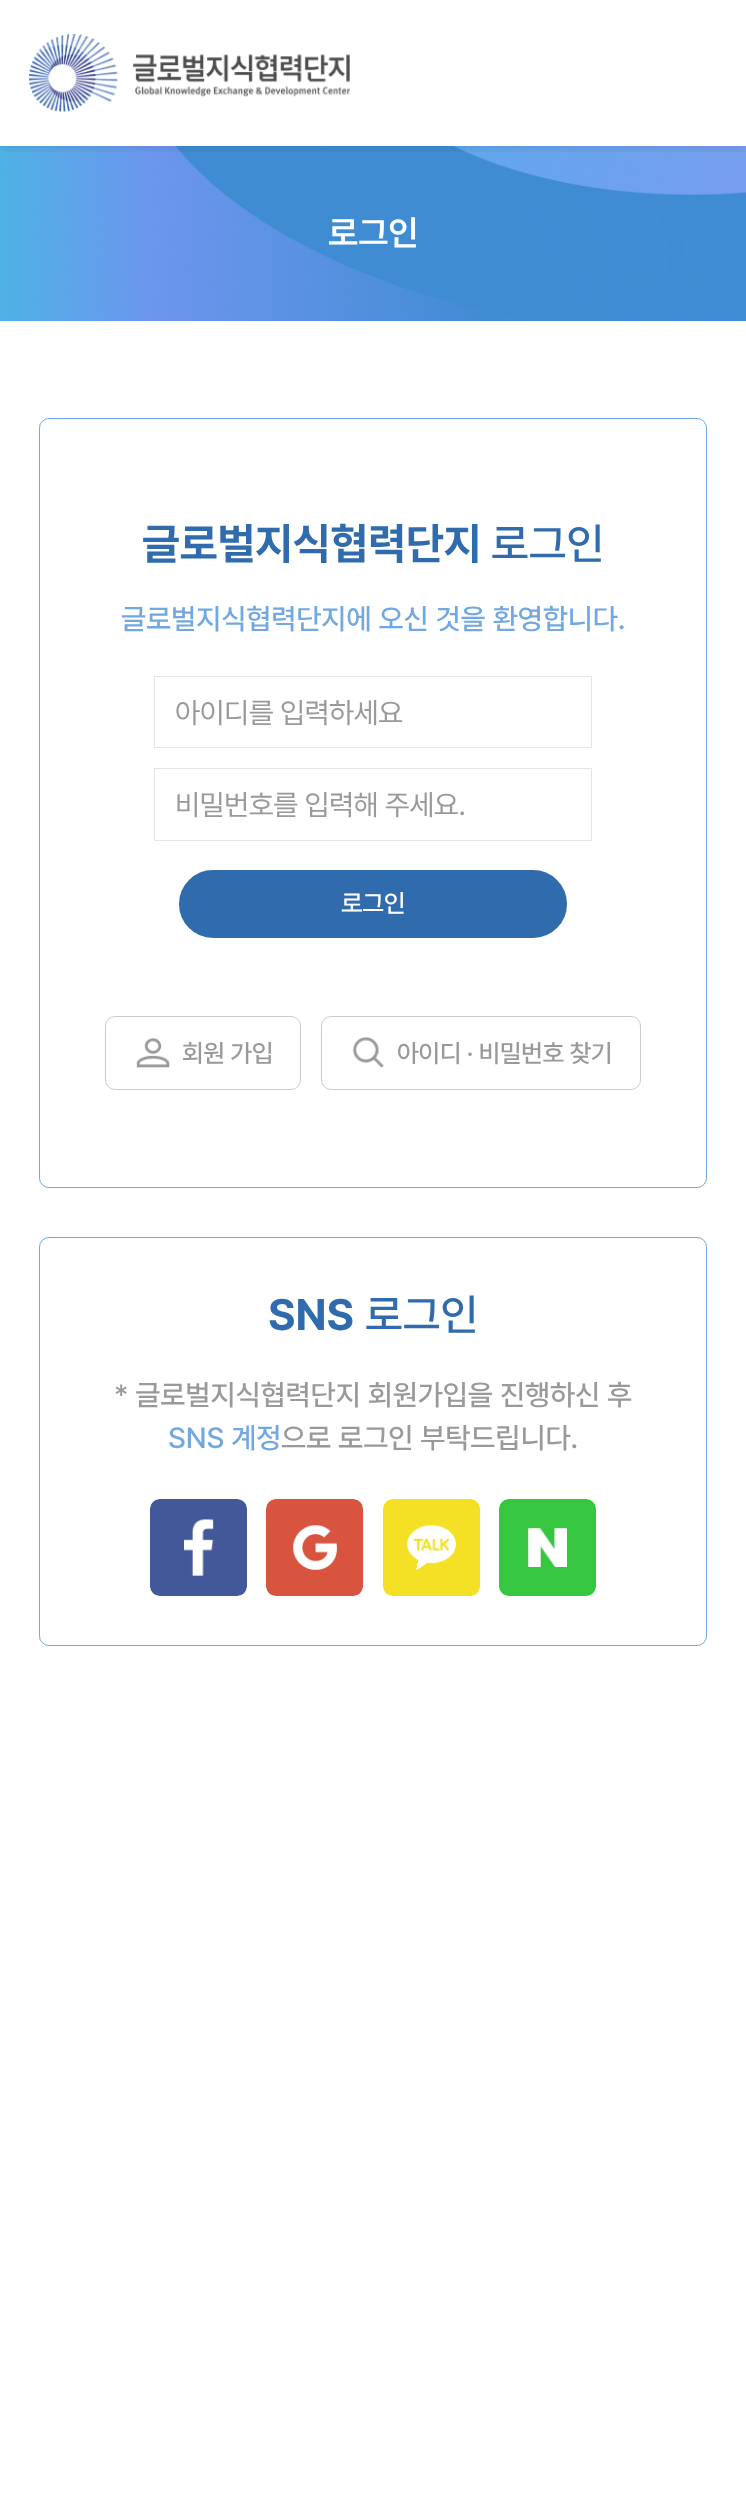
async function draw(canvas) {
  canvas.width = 746
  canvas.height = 2495
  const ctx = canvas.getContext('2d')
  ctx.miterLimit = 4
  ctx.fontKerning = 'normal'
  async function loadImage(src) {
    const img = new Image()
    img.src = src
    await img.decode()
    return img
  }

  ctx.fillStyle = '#fff'
  ctx.fillRect(0, 0, 746, 2495)
  ctx.drawImage(await loadImage('image1.png'), 0, 146, 746, 175)
  ctx.save()
  ctx.beginPath()
  ctx.rect(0, 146, 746, 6)
  ctx.clip()
  ctx.fillStyle = '#0000001a'
  ctx.filter = 'blur(5px)'
  ctx.beginPath()
  ctx.rect(0, 2, 746, 146)
  ctx.fill()
  ctx.filter = 'none'
  ctx.restore()
  ctx.drawImage(await loadImage('image0.png'), 29, 34, 321, 78)
  ctx.letterSpacing = '-0.1px'
  ctx.font = '600 35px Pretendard'
  ctx.fillText('로그인', 328, 245)
  ctx.beginPath()
  ctx.roundRect(39.5, 418.5, 667, 769, 9.5)
  ctx.strokeStyle = '#71a8e1'
  ctx.stroke()
  ctx.font = 'bold 43.75px Pretendard'
  ctx.fillStyle = '#306cad'
  ctx.fillText('글로벌지식협력단지', 142, 559)
  ctx.font = '500 43.75px Pretendard'
  ctx.fillText('로그인', 491, 559)
  ctx.font = '500 29.1px Pretendard'
  ctx.fillStyle = '#71a8e1'
  ctx.fillText('글로벌지식협력단지에 오신 것을 환영합니다.', 121, 629)
  ctx.strokeStyle = '#e4e4e4'
  ctx.strokeRect(154.5, 676.5, 437, 71)
  ctx.letterSpacing = '-0.6px'
  ctx.font = '29.1px Pretendard'
  ctx.fillStyle = '#999'
  ctx.fillText('아이디를 입력하세요', 175, 723)
  ctx.strokeRect(154.5, 768.5, 437, 72)
  ctx.fillText('비밀번호를 입력해 주세요.', 175, 815)
  ctx.fillStyle = '#306cad'
  ctx.beginPath()
  ctx.roundRect(180, 871, 386, 66, 33)
  ctx.fill()
  ctx.strokeStyle = '#306cad'
  ctx.lineWidth = 2
  ctx.stroke()
  ctx.letterSpacing = '-0.5px'
  ctx.font = '500 25.25px Pretendard'
  ctx.fillStyle = '#fff'
  ctx.fillText('로그인', 341, 912)
  ctx.beginPath()
  ctx.roundRect(105.5, 1016.5, 195, 73, 9.5)
  ctx.strokeStyle = '#ccc'
  ctx.lineWidth = 1
  ctx.stroke()
  ctx.drawImage(await loadImage('image2.png'), 136, 1037, 34, 31)
  ctx.fillStyle = '#999'
  ctx.fillText('회원 가입', 182, 1062)
  ctx.beginPath()
  ctx.roundRect(321.5, 1016.5, 319, 73, 9.5)
  ctx.stroke()
  ctx.drawImage(await loadImage('image3.png'), 352, 1037, 32, 31)
  ctx.fillText('아이디 · 비밀번호 찾기', 397, 1062)
  ctx.beginPath()
  ctx.roundRect(39.5, 1237.5, 667, 408, 9.5)
  ctx.strokeStyle = '#71a8e1'
  ctx.stroke()
  ctx.letterSpacing = '-0.1px'
  ctx.font = 'bold 43.75px Pretendard'
  ctx.fillStyle = '#306cad'
  ctx.fillText('SNS', 268, 1330)
  ctx.font = '500 43.75px Pretendard'
  ctx.fillText('로그인', 365, 1330)
  ctx.font = '500 29.1px Pretendard'
  ctx.fillStyle = '#999'
  ctx.fillText('* 글로벌지식협력단지 회원가입을 진행하신 후', 114, 1405)
  ctx.fillStyle = '#71a8e1'
  ctx.fillText('SNS 계정', 168, 1448)
  ctx.fillStyle = '#999'
  ctx.fillText('으로 로그인 부탁드립니다.', 281, 1448)
  ctx.drawImage(await loadImage('image4.png'), 150, 1499, 97, 97)
  ctx.drawImage(await loadImage('image5.png'), 266, 1499, 97, 97)
  ctx.drawImage(await loadImage('image6.png'), 383, 1499, 97, 97)
  ctx.drawImage(await loadImage('image7.png'), 499, 1499, 97, 97)
}

draw(document.querySelector('canvas'))
